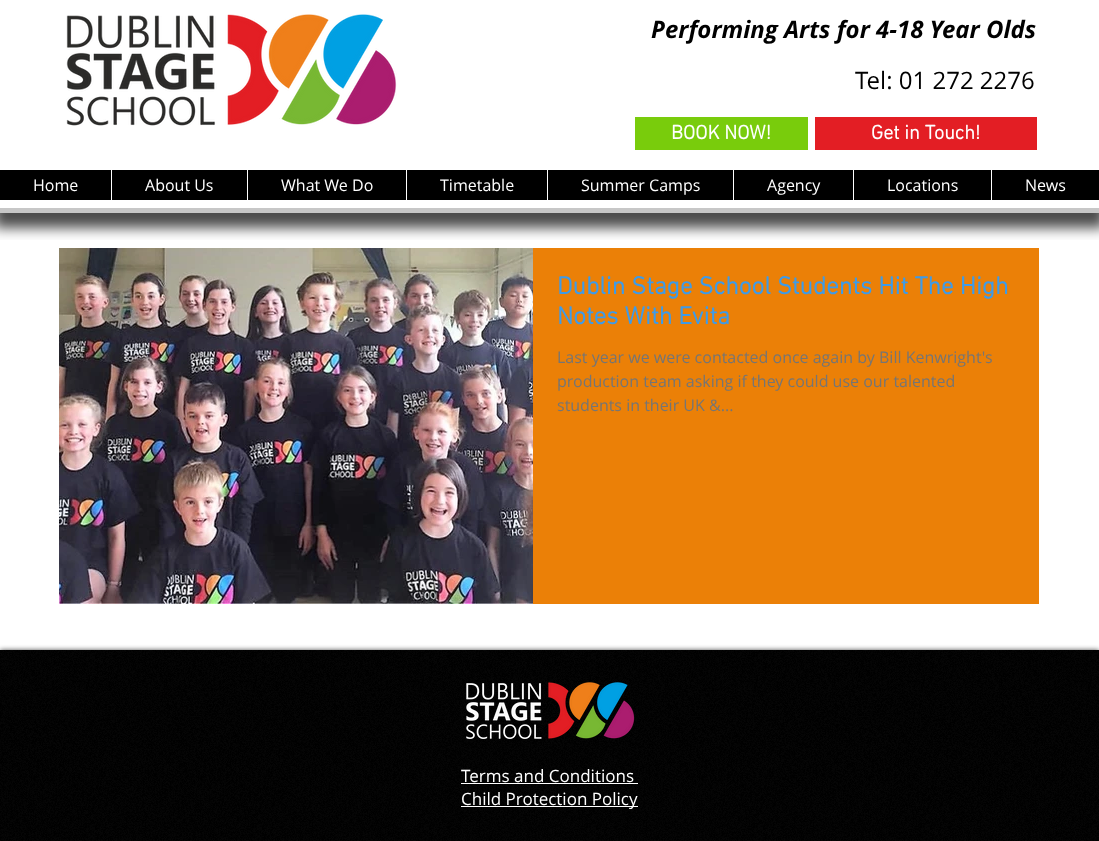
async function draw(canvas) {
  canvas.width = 1099
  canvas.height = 841
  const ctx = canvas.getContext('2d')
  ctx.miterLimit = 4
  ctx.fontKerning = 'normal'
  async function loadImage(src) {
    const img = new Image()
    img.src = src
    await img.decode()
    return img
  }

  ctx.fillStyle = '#fff'
  ctx.fillRect(0, 0, 1099, 841)
  ctx.drawImage(await loadImage('image1.png'), 59, 248, 474, 356)
  ctx.fillStyle = '#eb8007'
  ctx.fillRect(533, 248, 506, 356)
  ctx.save()
  ctx.beginPath()
  ctx.rect(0, 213, 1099, 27)
  ctx.clip()
  ctx.fillStyle = '#000000b3'
  ctx.filter = 'blur(6.5px)'
  ctx.beginPath()
  ctx.rect(-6, 3, 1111, 225)
  ctx.fill()
  ctx.filter = 'none'
  ctx.restore()
  ctx.fillStyle = '#c7c7c7'
  ctx.fillRect(0, 208, 1099, 5)
  ctx.drawImage(await loadImage('image0.png'), 66, 14, 331, 112)
  ctx.font = 'italic bold 24px Open Sans'
  ctx.fillStyle = '#000'
  ctx.fillText('Performing Arts for 4-18 Year Olds', 651, 38)
  ctx.font = '24px Open Sans'
  ctx.fillText('Tel: 01 272 2276', 855, 89)
  ctx.fillStyle = '#79cc0c'
  ctx.fillRect(635, 117, 173, 33)
  ctx.font = 'bold 20px "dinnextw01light"'
  ctx.fillStyle = '#fff'
  ctx.fillText('BOOK NOW!', 671, 139)
  ctx.fillStyle = '#e31e24'
  ctx.fillRect(815, 117, 222, 33)
  ctx.fillStyle = '#fff'
  ctx.fillText('Get in Touch!', 871, 139)
  ctx.fillStyle = '#000'
  ctx.fillRect(0, 170, 1099, 30)
  ctx.font = '16px Open Sans'
  ctx.fillStyle = '#fff'
  ctx.fillText('Home', 33, 191)
  ctx.fillRect(111, 170, 1, 30)
  ctx.fillText('About Us', 145, 191)
  ctx.fillRect(247, 170, 1, 30)
  ctx.fillText('What We Do', 281, 191)
  ctx.fillRect(406, 170, 1, 30)
  ctx.fillText('Timetable', 440, 191)
  ctx.fillRect(547, 170, 1, 30)
  ctx.fillText('Summer Camps', 581, 191)
  ctx.fillRect(733, 170, 1, 30)
  ctx.fillText('Agency', 767, 191)
  ctx.fillRect(853, 170, 1, 30)
  ctx.fillText('Locations', 887, 191)
  ctx.fillRect(991, 170, 1, 30)
  ctx.fillText('News', 1025, 191)
  ctx.font = 'bold 25px "dinnextw01light"'
  ctx.fillStyle = '#3d9be9'
  ctx.fillText('Dublin Stage School Students Hit The High', 557, 294)
  ctx.fillText('Notes With Evita', 557, 324)
  ctx.font = '16px Open Sans'
  ctx.fillStyle = '#757575'
  ctx.fillText('Last year we were contacted once again by Bill Kenwright\'s', 557, 363)
  ctx.fillText('production team asking if they could use our talented', 557, 387)
  ctx.fillText('students in their UK &...', 557, 411)
  ctx.fillStyle = '#000000b3'
  ctx.filter = 'blur(2.5px)'
  ctx.beginPath()
  ctx.rect(0, 650, 1099, 191)
  ctx.fill()
  ctx.filter = 'none'
  ctx.fillStyle = '#000'
  ctx.fillRect(0, 650, 1099, 191)
  ctx.drawImage(await loadImage('image2.png'), 0, 650, 1099, 191)
  ctx.drawImage(await loadImage('image3.png'), 466, 682, 169, 57)
  ctx.font = '17px Open Sans'
  ctx.fillStyle = '#fff'
  ctx.fillText('Terms and Conditions', 461, 782)
  ctx.fillRect(461, 783, 177, 1)
  ctx.fillRect(461, 806, 177, 1)
  ctx.fillText('Child Protection Policy', 461, 805)
}

draw(document.querySelector('canvas'))
